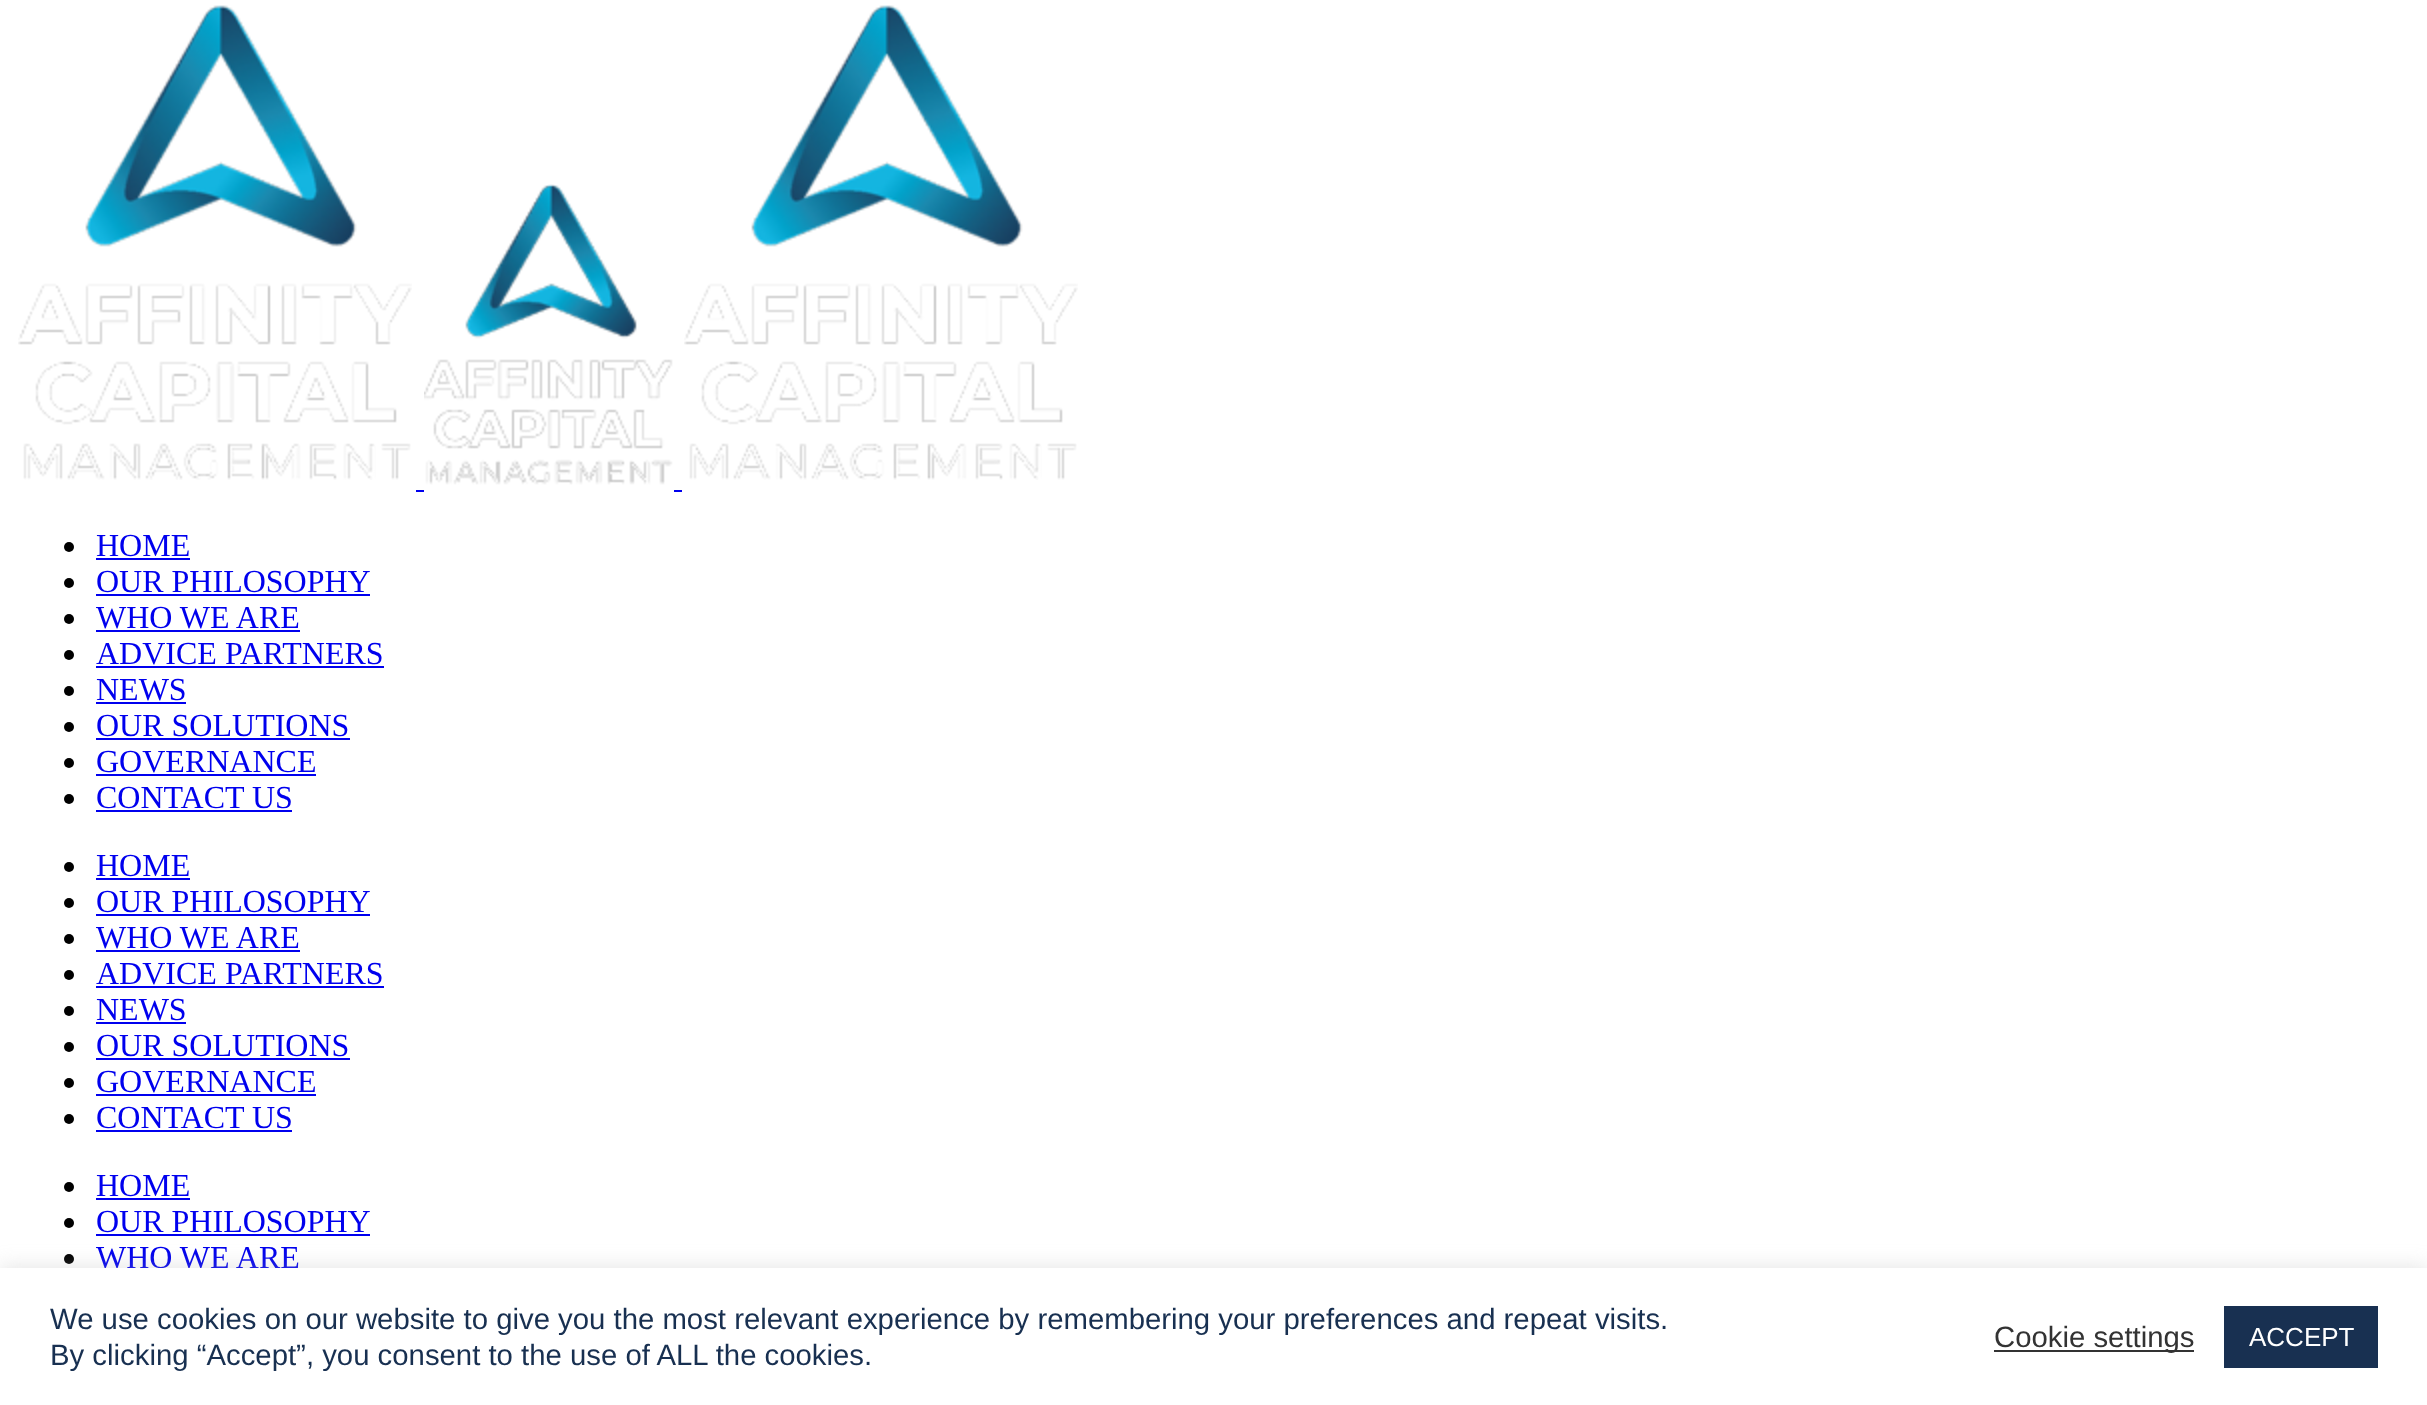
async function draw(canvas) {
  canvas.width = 2427
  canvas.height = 1405
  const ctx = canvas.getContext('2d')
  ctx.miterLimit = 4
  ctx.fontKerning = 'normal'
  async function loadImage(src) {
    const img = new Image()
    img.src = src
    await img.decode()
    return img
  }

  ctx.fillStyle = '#fff'
  ctx.fillRect(0, 0, 2427, 1405)
  ctx.drawImage(await loadImage('image0.png'), 18, 5, 394, 475)
  ctx.drawImage(await loadImage('image1.png'), 424, 184, 249, 301)
  ctx.drawImage(await loadImage('image0.png'), 684, 5, 394, 475)
  ctx.fillStyle = '#00e'
  ctx.fillRect(416, 490, 8, 2)
  ctx.fillRect(674, 490, 8, 2)
  ctx.fillStyle = '#000'
  ctx.beginPath()
  ctx.arc(69, 547, 5, 0, 2 * Math.PI)
  ctx.fill()
  ctx.font = '32px Liberation Serif'
  ctx.fillStyle = '#00e'
  ctx.fillText('HOME', 96, 556)
  ctx.fillRect(96, 558, 94, 2)
  ctx.fillStyle = '#000'
  ctx.beginPath()
  ctx.arc(69, 583, 5, 0, 2 * Math.PI)
  ctx.fill()
  ctx.fillStyle = '#00e'
  ctx.fillText('OUR PHILOSOPHY', 96, 592)
  ctx.fillRect(96, 594, 274, 2)
  ctx.fillStyle = '#000'
  ctx.beginPath()
  ctx.arc(69, 619, 5, 0, 2 * Math.PI)
  ctx.fill()
  ctx.fillStyle = '#00e'
  ctx.fillText('WHO WE ARE', 96, 628)
  ctx.fillRect(96, 630, 204, 2)
  ctx.fillStyle = '#000'
  ctx.beginPath()
  ctx.arc(69, 655, 5, 0, 2 * Math.PI)
  ctx.fill()
  ctx.fillStyle = '#00e'
  ctx.fillText('ADVICE PARTNERS', 96, 664)
  ctx.fillRect(96, 666, 288, 2)
  ctx.fillStyle = '#000'
  ctx.beginPath()
  ctx.arc(69, 691, 5, 0, 2 * Math.PI)
  ctx.fill()
  ctx.fillStyle = '#00e'
  ctx.fillText('NEWS', 96, 700)
  ctx.fillRect(96, 702, 90, 2)
  ctx.fillStyle = '#000'
  ctx.beginPath()
  ctx.arc(69, 727, 5, 0, 2 * Math.PI)
  ctx.fill()
  ctx.fillStyle = '#00e'
  ctx.fillText('OUR SOLUTIONS', 96, 736)
  ctx.fillRect(96, 738, 254, 2)
  ctx.fillStyle = '#000'
  ctx.beginPath()
  ctx.arc(69, 763, 5, 0, 2 * Math.PI)
  ctx.fill()
  ctx.fillStyle = '#00e'
  ctx.fillText('GOVERNANCE', 96, 772)
  ctx.fillRect(96, 774, 220, 2)
  ctx.fillStyle = '#000'
  ctx.beginPath()
  ctx.arc(69, 799, 5, 0, 2 * Math.PI)
  ctx.fill()
  ctx.fillStyle = '#00e'
  ctx.fillText('CONTACT US', 96, 808)
  ctx.fillRect(96, 810, 196, 2)
  ctx.fillStyle = '#000'
  ctx.beginPath()
  ctx.arc(69, 867, 5, 0, 2 * Math.PI)
  ctx.fill()
  ctx.fillStyle = '#00e'
  ctx.fillText('HOME', 96, 876)
  ctx.fillRect(96, 878, 94, 2)
  ctx.fillStyle = '#000'
  ctx.beginPath()
  ctx.arc(69, 903, 5, 0, 2 * Math.PI)
  ctx.fill()
  ctx.fillStyle = '#00e'
  ctx.fillText('OUR PHILOSOPHY', 96, 912)
  ctx.fillRect(96, 914, 274, 2)
  ctx.fillStyle = '#000'
  ctx.beginPath()
  ctx.arc(69, 939, 5, 0, 2 * Math.PI)
  ctx.fill()
  ctx.fillStyle = '#00e'
  ctx.fillText('WHO WE ARE', 96, 948)
  ctx.fillRect(96, 950, 204, 2)
  ctx.fillStyle = '#000'
  ctx.beginPath()
  ctx.arc(69, 975, 5, 0, 2 * Math.PI)
  ctx.fill()
  ctx.fillStyle = '#00e'
  ctx.fillText('ADVICE PARTNERS', 96, 984)
  ctx.fillRect(96, 986, 288, 2)
  ctx.fillStyle = '#000'
  ctx.beginPath()
  ctx.arc(69, 1011, 5, 0, 2 * Math.PI)
  ctx.fill()
  ctx.fillStyle = '#00e'
  ctx.fillText('NEWS', 96, 1020)
  ctx.fillRect(96, 1022, 90, 2)
  ctx.fillStyle = '#000'
  ctx.beginPath()
  ctx.arc(69, 1047, 5, 0, 2 * Math.PI)
  ctx.fill()
  ctx.fillStyle = '#00e'
  ctx.fillText('OUR SOLUTIONS', 96, 1056)
  ctx.fillRect(96, 1058, 254, 2)
  ctx.fillStyle = '#000'
  ctx.beginPath()
  ctx.arc(69, 1083, 5, 0, 2 * Math.PI)
  ctx.fill()
  ctx.fillStyle = '#00e'
  ctx.fillText('GOVERNANCE', 96, 1092)
  ctx.fillRect(96, 1094, 220, 2)
  ctx.fillStyle = '#000'
  ctx.beginPath()
  ctx.arc(69, 1119, 5, 0, 2 * Math.PI)
  ctx.fill()
  ctx.fillStyle = '#00e'
  ctx.fillText('CONTACT US', 96, 1128)
  ctx.fillRect(96, 1130, 196, 2)
  ctx.fillStyle = '#000'
  ctx.beginPath()
  ctx.arc(69, 1187, 5, 0, 2 * Math.PI)
  ctx.fill()
  ctx.fillStyle = '#00e'
  ctx.fillText('HOME', 96, 1196)
  ctx.fillRect(96, 1198, 94, 2)
  ctx.fillStyle = '#000'
  ctx.beginPath()
  ctx.arc(69, 1223, 5, 0, 2 * Math.PI)
  ctx.fill()
  ctx.fillStyle = '#00e'
  ctx.fillText('OUR PHILOSOPHY', 96, 1232)
  ctx.fillRect(96, 1234, 274, 2)
  ctx.fillStyle = '#000'
  ctx.beginPath()
  ctx.arc(69, 1259, 5, 0, 2 * Math.PI)
  ctx.fill()
  ctx.fillStyle = '#00e'
  ctx.fillText('WHO WE ARE', 96, 1268)
  ctx.fillStyle = '#acabab4d'
  ctx.filter = 'blur(10px)'
  ctx.beginPath()
  ctx.rect(0, 1266, 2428, 138)
  ctx.fill()
  ctx.filter = 'none'
  ctx.fillStyle = '#fff'
  ctx.fillRect(0, 1268, 2427, 137)
  ctx.font = '29.33px Liberation Sans'
  ctx.fillStyle = '#183051'
  ctx.fillText('We use cookies on our website to give you the most relevant experience by remembering your preferences and repeat visits.', 50, 1329)
  ctx.fillText('By clicking “Accept”, you consent to the use of ALL the cookies.', 50, 1365)
  ctx.fillStyle = '#333'
  ctx.fillRect(1994, 1350, 200, 2)
  ctx.fillText('Cookie settings', 1994, 1347)
  ctx.fillStyle = '#183051'
  ctx.fillRect(2224, 1306, 154, 62)
  ctx.font = '26px Liberation Sans'
  ctx.fillStyle = '#fff'
  ctx.fillText('ACCEPT', 2249, 1346)
}

draw(document.querySelector('canvas'))
